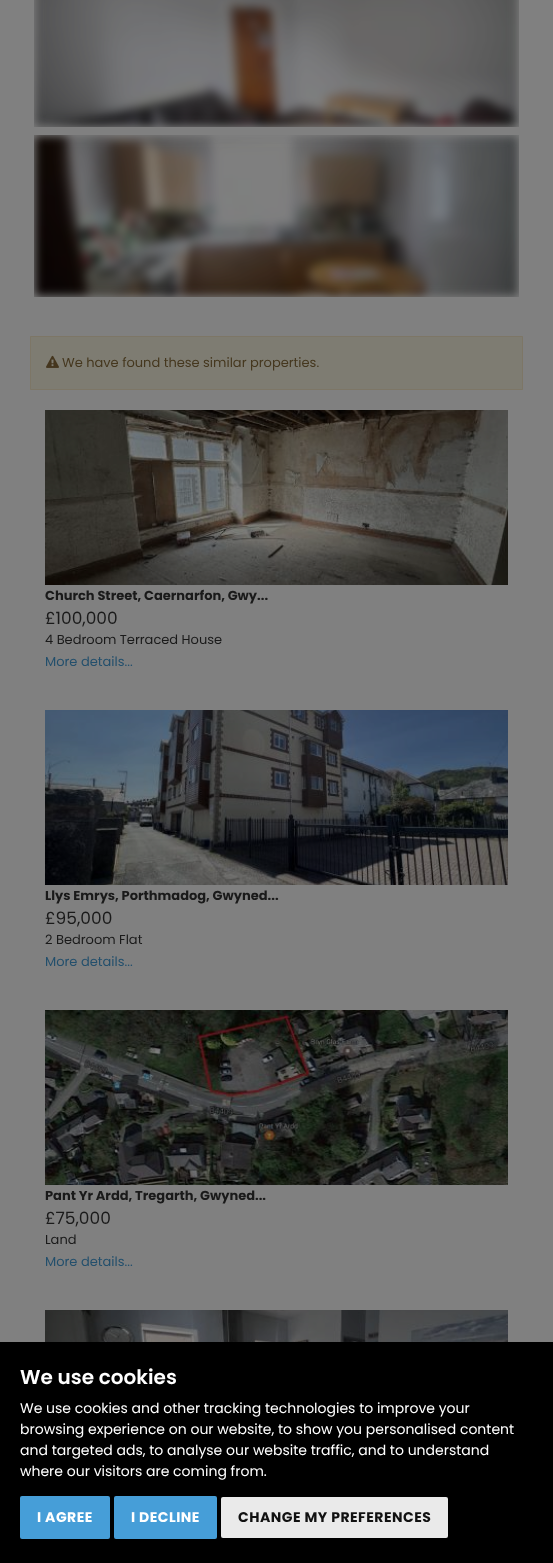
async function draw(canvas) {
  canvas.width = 553
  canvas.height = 1563
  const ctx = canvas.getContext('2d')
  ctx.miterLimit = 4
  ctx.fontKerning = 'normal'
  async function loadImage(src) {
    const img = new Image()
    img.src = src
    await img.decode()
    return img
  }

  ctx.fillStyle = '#808080'
  ctx.fillRect(0, 0, 553, 1563)
  ctx.drawImage(await loadImage('image0.png'), 34, 0, 485, 127)
  ctx.drawImage(await loadImage('image1.png'), 34, 135, 485, 162)
  ctx.fillStyle = '#7e7c72'
  ctx.beginPath()
  ctx.rect(30.5, 336.5, 492, 53)
  ctx.fill()
  ctx.strokeStyle = '#7d7666'
  ctx.stroke()
  ctx.drawImage(await loadImage('image2.png'), 46, 355, 13, 13)
  ctx.font = '13px Poppins'
  ctx.fillStyle = '#45371e'
  ctx.fillText('We have found these similar properties.', 62, 367)
  ctx.drawImage(await loadImage('image3.png'), 45, 410, 463, 175)
  ctx.font = 'bold 13px Poppins'
  ctx.fillStyle = '#1a1a1a'
  ctx.fillText('Church Street, Caernarfon, Gwy...', 45, 600)
  ctx.font = '17px Poppins'
  ctx.fillText('£100,000', 45, 624)
  ctx.font = '13px Poppins'
  ctx.fillText('4 Bedroom Terraced House', 45, 644)
  ctx.fillStyle = '#234f6c'
  ctx.fillText('More details...', 45, 666)
  ctx.drawImage(await loadImage('image4.png'), 45, 710, 463, 175)
  ctx.font = 'bold 13px Poppins'
  ctx.fillStyle = '#1a1a1a'
  ctx.fillText('Llys Emrys, Porthmadog, Gwyned...', 45, 900)
  ctx.font = '17px Poppins'
  ctx.fillText('£95,000', 45, 924)
  ctx.font = '13px Poppins'
  ctx.fillText('2 Bedroom Flat', 45, 944)
  ctx.fillStyle = '#234f6c'
  ctx.fillText('More details...', 45, 966)
  ctx.drawImage(await loadImage('image5.png'), 45, 1010, 463, 175)
  ctx.font = 'bold 13px Poppins'
  ctx.fillStyle = '#1a1a1a'
  ctx.fillText('Pant Yr Ardd, Tregarth, Gwyned...', 45, 1200)
  ctx.font = '17px Poppins'
  ctx.fillText('£75,000', 45, 1224)
  ctx.font = '13px Poppins'
  ctx.fillText('Land', 45, 1244)
  ctx.fillStyle = '#234f6c'
  ctx.fillText('More details...', 45, 1266)
  ctx.drawImage(await loadImage('image6.png'), 45, 1310, 463, 32)
  ctx.fillStyle = '#000'
  ctx.fillRect(0, 1342, 553, 221)
  ctx.font = '600 20px Poppins'
  ctx.fillStyle = '#fff'
  ctx.fillText('We use cookies', 20, 1384)
  ctx.font = '14px Poppins'
  ctx.fillText('We use cookies and other tracking technologies to improve your', 20, 1413)
  ctx.fillText('browsing experience on our website, to show you personalised content', 20, 1434)
  ctx.fillText('and targeted ads, to analyse our website traffic, and to understand', 20, 1455)
  ctx.fillText('where our visitors are coming from.', 20, 1476)
  ctx.fillStyle = '#469ed8'
  ctx.beginPath()
  ctx.roundRect(20, 1496, 90, 43, 2)
  ctx.fill()
  ctx.letterSpacing = '0.5px'
  ctx.font = 'bold 14px Poppins'
  ctx.fillStyle = '#fff'
  ctx.fillText('I AGREE', 37, 1522)
  ctx.fillStyle = '#469ed8'
  ctx.beginPath()
  ctx.roundRect(114, 1496, 103, 43, 2)
  ctx.fill()
  ctx.fillStyle = '#fff'
  ctx.fillText('I DECLINE', 131, 1522)
  ctx.fillStyle = '#eaeaea'
  ctx.beginPath()
  ctx.roundRect(221, 1497, 227, 41, 2)
  ctx.fill()
  ctx.fillStyle = '#111'
  ctx.fillText('CHANGE MY PREFERENCES', 238, 1522)
}

draw(document.querySelector('canvas'))
